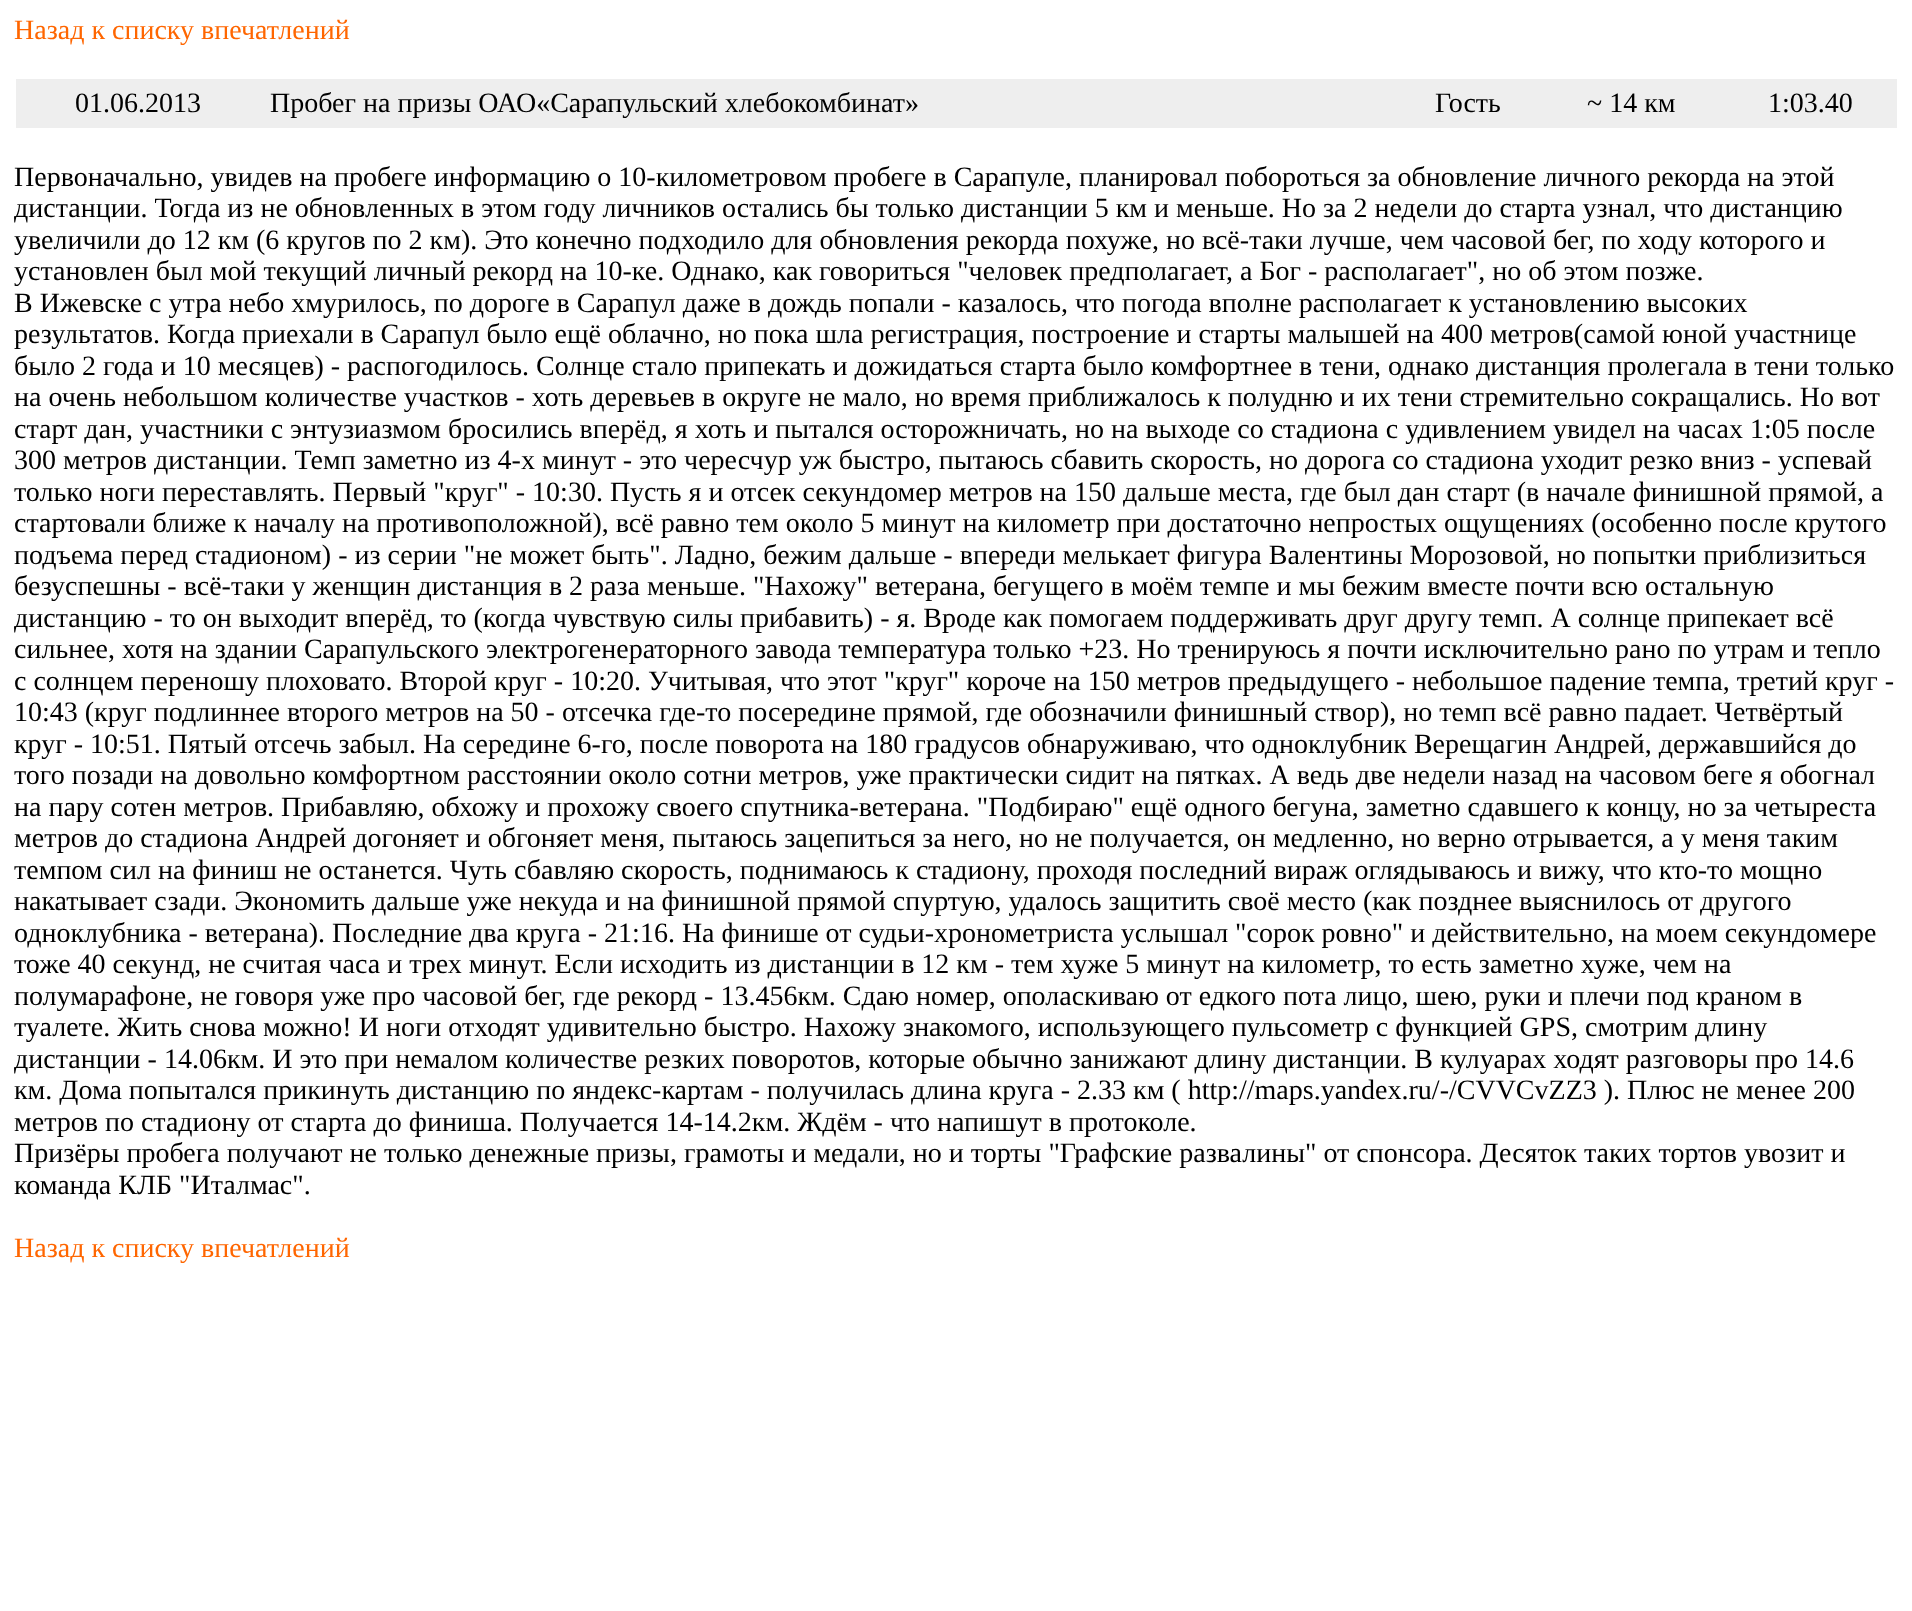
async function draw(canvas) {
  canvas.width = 1912
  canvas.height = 1611
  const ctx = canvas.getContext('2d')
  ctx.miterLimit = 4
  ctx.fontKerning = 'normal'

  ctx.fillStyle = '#fff'
  ctx.fillRect(0, 0, 1912, 1611)
  ctx.font = '28px Liberation Serif'
  ctx.fillStyle = '#f60'
  ctx.fillText('Назад к списку впечатлений', 14, 39)
  ctx.fillStyle = '#eee'
  ctx.fillRect(16, 79, 1881, 49)
  ctx.fillStyle = '#000'
  ctx.fillText('01.06.2013', 75, 112)
  ctx.fillText('Пробег на призы ОАО«Сарапульский хлебокомбинат»', 270, 112)
  ctx.fillText('Гость', 1435, 112)
  ctx.fillText('~ 14 км', 1587, 112)
  ctx.fillText('1:03.40', 1768, 112)
  ctx.fillText('Первоначально, увидев на пробеге информацию о 10-километровом пробеге в Сарапуле, планировал побороться за обновление личного рекорда на этой', 14, 186)
  ctx.fillText('дистанции. Тогда из не обновленных в этом году личников остались бы только дистанции 5 км и меньше. Но за 2 недели до старта узнал, что дистанцию', 14, 217)
  ctx.fillText('увеличили до 12 км (6 кругов по 2 км). Это конечно подходило для обновления рекорда похуже, но всё-таки лучше, чем часовой бег, по ходу которого и', 14, 249)
  ctx.fillText('установлен был мой текущий личный рекорд на 10-ке. Однако, как говориться "человек предполагает, а Бог - располагает", но об этом позже.', 14, 280)
  ctx.fillText('В Ижевске с утра небо хмурилось, по дороге в Сарапул даже в дождь попали - казалось, что погода вполне располагает к установлению высоких', 14, 312)
  ctx.fillText('результатов. Когда приехали в Сарапул было ещё облачно, но пока шла регистрация, построение и старты малышей на 400 метров(самой юной участнице', 14, 343)
  ctx.fillText('было 2 года и 10 месяцев) - распогодилось. Солнце стало припекать и дожидаться старта было комфортнее в тени, однако дистанция пролегала в тени только', 14, 375)
  ctx.fillText('на очень небольшом количестве участков - хоть деревьев в округе не мало, но время приближалось к полудню и их тени стремительно сокращались. Но вот', 14, 406)
  ctx.fillText('старт дан, участники с энтузиазмом бросились вперёд, я хоть и пытался осторожничать, но на выходе со стадиона с удивлением увидел на часах 1:05 после', 14, 438)
  ctx.fillText('300 метров дистанции. Темп заметно из 4-х минут - это чересчур уж быстро, пытаюсь сбавить скорость, но дорога со стадиона уходит резко вниз - успевай', 14, 469)
  ctx.fillText('только ноги переставлять. Первый "круг" - 10:30. Пусть я и отсек секундомер метров на 150 дальше места, где был дан старт (в начале финишной прямой, а', 14, 501)
  ctx.fillText('стартовали ближе к началу на противоположной), всё равно тем около 5 минут на километр при достаточно непростых ощущениях (особенно после крутого', 14, 532)
  ctx.fillText('подъема перед стадионом) - из серии "не может быть". Ладно, бежим дальше - впереди мелькает фигура Валентины Морозовой, но попытки приблизиться', 14, 564)
  ctx.fillText('безуспешны - всё-таки у женщин дистанция в 2 раза меньше. "Нахожу" ветерана, бегущего в моём темпе и мы бежим вместе почти всю остальную', 14, 595)
  ctx.fillText('дистанцию - то он выходит вперёд, то (когда чувствую силы прибавить) - я. Вроде как помогаем поддерживать друг другу темп. А солнце припекает всё', 14, 627)
  ctx.fillText('сильнее, хотя на здании Сарапульского электрогенераторного завода температура только +23. Но тренируюсь я почти исключительно рано по утрам и тепло', 14, 658)
  ctx.fillText('с солнцем переношу плоховато. Второй круг - 10:20. Учитывая, что этот "круг" короче на 150 метров предыдущего - небольшое падение темпа, третий круг -', 14, 690)
  ctx.fillText('10:43 (круг подлиннее второго метров на 50 - отсечка где-то посередине прямой, где обозначили финишный створ), но темп всё равно падает. Четвёртый', 14, 721)
  ctx.fillText('круг - 10:51. Пятый отсечь забыл. На середине 6-го, после поворота на 180 градусов обнаруживаю, что одноклубник Верещагин Андрей, державшийся до', 14, 753)
  ctx.fillText('того позади на довольно комфортном расстоянии около сотни метров, уже практически сидит на пятках. А ведь две недели назад на часовом беге я обогнал', 14, 784)
  ctx.fillText('на пару сотен метров. Прибавляю, обхожу и прохожу своего спутника-ветерана. "Подбираю" ещё одного бегуна, заметно сдавшего к концу, но за четыреста', 14, 816)
  ctx.fillText('метров до стадиона Андрей догоняет и обгоняет меня, пытаюсь зацепиться за него, но не получается, он медленно, но верно отрывается, а у меня таким', 14, 847)
  ctx.fillText('темпом сил на финиш не останется. Чуть сбавляю скорость, поднимаюсь к стадиону, проходя последний вираж оглядываюсь и вижу, что кто-то мощно', 14, 879)
  ctx.fillText('накатывает сзади. Экономить дальше уже некуда и на финишной прямой спуртую, удалось защитить своё место (как позднее выяснилось от другого', 14, 910)
  ctx.fillText('одноклубника - ветерана). Последние два круга - 21:16. На финише от судьи-хронометриста услышал "сорок ровно" и действительно, на моем секундомере', 14, 942)
  ctx.fillText('тоже 40 секунд, не считая часа и трех минут. Если исходить из дистанции в 12 км - тем хуже 5 минут на километр, то есть заметно хуже, чем на', 14, 973)
  ctx.fillText('полумарафоне, не говоря уже про часовой бег, где рекорд - 13.456км. Сдаю номер, ополаскиваю от едкого пота лицо, шею, руки и плечи под краном в', 14, 1005)
  ctx.fillText('туалете. Жить снова можно! И ноги отходят удивительно быстро. Нахожу знакомого, использующего пульсометр с функцией GPS, смотрим длину', 14, 1036)
  ctx.fillText('дистанции - 14.06км. И это при немалом количестве резких поворотов, которые обычно занижают длину дистанции. В кулуарах ходят разговоры про 14.6', 14, 1068)
  ctx.fillText('км. Дома попытался прикинуть дистанцию по яндекс-картам - получилась длина круга - 2.33 км ( http://maps.yandex.ru/-/CVVCvZZ3 ). Плюс не менее 200', 14, 1099)
  ctx.fillText('метров по стадиону от старта до финиша. Получается 14-14.2км. Ждём - что напишут в протоколе.', 14, 1131)
  ctx.fillText('Призёры пробега получают не только денежные призы, грамоты и медали, но и торты "Графские развалины" от спонсора. Десяток таких тортов увозит и', 14, 1162)
  ctx.fillText('команда КЛБ "Италмас".', 14, 1194)
  ctx.fillStyle = '#f60'
  ctx.fillText('Назад к списку впечатлений', 14, 1257)
}

draw(document.querySelector('canvas'))
